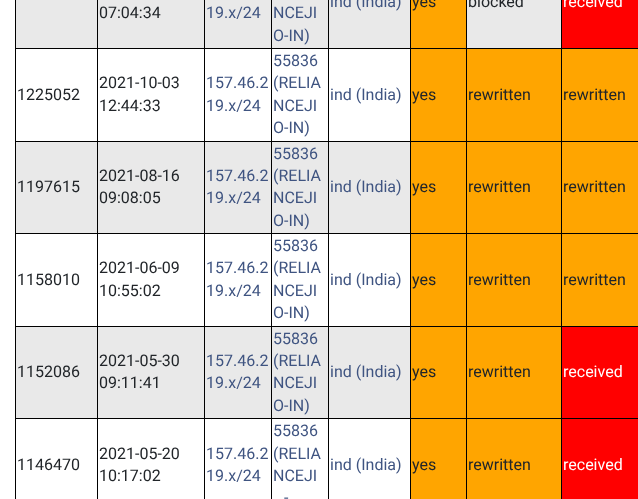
async function draw(canvas) {
  canvas.width = 638
  canvas.height = 499
  const ctx = canvas.getContext('2d')
  ctx.miterLimit = 4
  ctx.fontKerning = 'normal'

  ctx.fillStyle = '#fff'
  ctx.fillRect(0, 0, 638, 499)
  ctx.fillStyle = '#000'
  ctx.fillRect(15, 0, 1, 499)
  ctx.fillStyle = '#e9e9e9'
  ctx.fillRect(16, 0, 81, 48)
  ctx.fillRect(329, 0, 81, 48)
  ctx.fillStyle = '#000'
  ctx.fillRect(561, 48, 77, 1)
  ctx.fillRect(561, 141, 77, 1)
  ctx.fillRect(561, 233, 77, 1)
  ctx.fillRect(561, 326, 77, 1)
  ctx.fillRect(561, 418, 77, 1)
  ctx.fillRect(561, 418, 1, 81)
  ctx.fillRect(466, 418, 96, 1)
  ctx.fillRect(561, 326, 1, 93)
  ctx.fillRect(466, 326, 96, 1)
  ctx.fillRect(561, 233, 1, 94)
  ctx.fillRect(466, 233, 96, 1)
  ctx.fillRect(561, 141, 1, 93)
  ctx.fillRect(466, 141, 96, 1)
  ctx.fillRect(561, 48, 1, 94)
  ctx.fillRect(466, 48, 96, 1)
  ctx.fillRect(466, 418, 1, 81)
  ctx.fillRect(410, 418, 57, 1)
  ctx.fillRect(466, 326, 1, 93)
  ctx.fillRect(410, 326, 57, 1)
  ctx.fillRect(466, 233, 1, 94)
  ctx.fillRect(410, 233, 57, 1)
  ctx.fillRect(466, 141, 1, 93)
  ctx.fillRect(410, 141, 57, 1)
  ctx.fillRect(466, 48, 1, 94)
  ctx.fillRect(410, 48, 57, 1)
  ctx.fillRect(410, 418, 1, 81)
  ctx.fillRect(328, 418, 83, 1)
  ctx.fillRect(410, 326, 1, 93)
  ctx.fillRect(328, 326, 83, 1)
  ctx.fillRect(410, 233, 1, 94)
  ctx.fillRect(328, 233, 83, 1)
  ctx.fillRect(410, 141, 1, 93)
  ctx.fillRect(328, 141, 83, 1)
  ctx.fillRect(410, 48, 1, 94)
  ctx.fillRect(328, 48, 83, 1)
  ctx.fillRect(328, 418, 1, 81)
  ctx.fillRect(271, 418, 58, 1)
  ctx.fillRect(328, 326, 1, 93)
  ctx.fillRect(271, 326, 58, 1)
  ctx.fillRect(328, 233, 1, 94)
  ctx.fillRect(271, 233, 58, 1)
  ctx.fillRect(328, 141, 1, 93)
  ctx.fillRect(271, 141, 58, 1)
  ctx.fillRect(328, 48, 1, 94)
  ctx.fillRect(271, 48, 58, 1)
  ctx.fillRect(328, 0, 1, 49)
  ctx.font = '16px Roboto'
  ctx.fillStyle = '#3f5481'
  ctx.fillText('ind (India)', 330, 7)
  ctx.fillStyle = '#ffa500'
  ctx.fillRect(411, 0, 55, 48)
  ctx.fillStyle = '#000'
  ctx.fillRect(410, 0, 1, 49)
  ctx.fillStyle = '#212529'
  ctx.fillText('yes', 412, 7)
  ctx.fillStyle = '#e9e9e9'
  ctx.fillRect(467, 0, 94, 48)
  ctx.fillStyle = '#000'
  ctx.fillRect(466, 0, 1, 49)
  ctx.fillStyle = '#212529'
  ctx.fillText('blocked', 468, 7)
  ctx.fillStyle = '#f00'
  ctx.fillRect(562, 0, 76, 48)
  ctx.fillStyle = '#000'
  ctx.fillRect(561, 0, 1, 49)
  ctx.fillStyle = '#fff'
  ctx.fillText('received', 563, 7)
  ctx.fillStyle = '#e9e9e9'
  ctx.fillRect(98, 0, 106, 48)
  ctx.fillStyle = '#000'
  ctx.fillRect(271, 418, 1, 81)
  ctx.fillRect(204, 418, 68, 1)
  ctx.fillRect(271, 326, 1, 93)
  ctx.fillRect(204, 326, 68, 1)
  ctx.fillRect(271, 233, 1, 94)
  ctx.fillRect(204, 233, 68, 1)
  ctx.fillRect(271, 141, 1, 93)
  ctx.fillRect(204, 141, 68, 1)
  ctx.fillRect(271, 48, 1, 94)
  ctx.fillRect(204, 48, 68, 1)
  ctx.fillRect(204, 418, 1, 81)
  ctx.fillRect(97, 418, 108, 1)
  ctx.fillRect(204, 326, 1, 93)
  ctx.fillRect(97, 326, 108, 1)
  ctx.fillRect(204, 233, 1, 94)
  ctx.fillRect(97, 233, 108, 1)
  ctx.fillRect(204, 141, 1, 93)
  ctx.fillRect(97, 141, 108, 1)
  ctx.fillRect(204, 48, 1, 94)
  ctx.fillRect(97, 48, 108, 1)
  ctx.fillRect(97, 418, 1, 81)
  ctx.fillRect(15, 418, 83, 1)
  ctx.fillRect(97, 326, 1, 93)
  ctx.fillRect(15, 326, 83, 1)
  ctx.fillRect(97, 233, 1, 94)
  ctx.fillRect(15, 233, 83, 1)
  ctx.fillRect(97, 141, 1, 93)
  ctx.fillRect(15, 141, 83, 1)
  ctx.fillRect(97, 48, 1, 94)
  ctx.fillRect(15, 48, 83, 1)
  ctx.fillRect(97, 0, 1, 49)
  ctx.fillStyle = '#212529'
  ctx.fillText('07:04:34', 99, 18)
  ctx.fillStyle = '#e9e9e9'
  ctx.fillRect(205, 0, 66, 48)
  ctx.fillStyle = '#000'
  ctx.fillRect(204, 0, 1, 49)
  ctx.fillStyle = '#3f5481'
  ctx.fillText('19.x/24', 206, 18)
  ctx.fillStyle = '#e9e9e9'
  ctx.fillRect(272, 0, 56, 48)
  ctx.fillStyle = '#000'
  ctx.fillRect(271, 0, 1, 49)
  ctx.fillStyle = '#3f5481'
  ctx.fillText('NCEJI', 273, 18)
  ctx.fillText('O-IN)', 273, 41)
  ctx.fillStyle = '#212529'
  ctx.fillText('1225052', 17, 100)
  ctx.fillText('2021-10-03', 99, 88)
  ctx.fillText('12:44:33', 99, 111)
  ctx.fillStyle = '#3f5481'
  ctx.fillText('157.46.2', 206, 88)
  ctx.fillText('19.x/24', 206, 111)
  ctx.fillText('55836', 273, 66)
  ctx.fillText('(RELIA', 273, 88)
  ctx.fillText('NCEJI', 273, 111)
  ctx.fillText('O-IN)', 273, 133)
  ctx.fillText('ind (India)', 330, 100)
  ctx.fillStyle = '#ffa500'
  ctx.fillRect(411, 49, 55, 92)
  ctx.fillStyle = '#212529'
  ctx.fillText('yes', 412, 100)
  ctx.fillStyle = '#ffa500'
  ctx.fillRect(467, 49, 94, 92)
  ctx.fillStyle = '#212529'
  ctx.fillText('rewritten', 468, 100)
  ctx.fillStyle = '#ffa500'
  ctx.fillRect(562, 49, 76, 92)
  ctx.fillStyle = '#212529'
  ctx.fillText('rewritten', 563, 100)
  ctx.fillStyle = '#e9e9e9'
  ctx.fillRect(16, 142, 81, 91)
  ctx.fillStyle = '#212529'
  ctx.fillText('1197615', 17, 192)
  ctx.fillStyle = '#e9e9e9'
  ctx.fillRect(98, 142, 106, 91)
  ctx.fillStyle = '#212529'
  ctx.fillText('2021-08-16', 99, 181)
  ctx.fillText('09:08:05', 99, 203)
  ctx.fillStyle = '#e9e9e9'
  ctx.fillRect(205, 142, 66, 91)
  ctx.fillStyle = '#3f5481'
  ctx.fillText('157.46.2', 206, 181)
  ctx.fillText('19.x/24', 206, 203)
  ctx.fillStyle = '#e9e9e9'
  ctx.fillRect(272, 142, 56, 91)
  ctx.fillStyle = '#3f5481'
  ctx.fillText('55836', 273, 159)
  ctx.fillText('(RELIA', 273, 181)
  ctx.fillText('NCEJI', 273, 203)
  ctx.fillText('O-IN)', 273, 226)
  ctx.fillStyle = '#e9e9e9'
  ctx.fillRect(329, 142, 81, 91)
  ctx.fillStyle = '#3f5481'
  ctx.fillText('ind (India)', 330, 192)
  ctx.fillStyle = '#ffa500'
  ctx.fillRect(411, 142, 55, 91)
  ctx.fillStyle = '#212529'
  ctx.fillText('yes', 412, 192)
  ctx.fillStyle = '#ffa500'
  ctx.fillRect(467, 142, 94, 91)
  ctx.fillStyle = '#212529'
  ctx.fillText('rewritten', 468, 192)
  ctx.fillStyle = '#ffa500'
  ctx.fillRect(562, 142, 76, 91)
  ctx.fillStyle = '#212529'
  ctx.fillText('rewritten', 563, 192)
  ctx.fillText('1158010', 17, 285)
  ctx.fillText('2021-06-09', 99, 273)
  ctx.fillText('10:55:02', 99, 296)
  ctx.fillStyle = '#3f5481'
  ctx.fillText('157.46.2', 206, 273)
  ctx.fillText('19.x/24', 206, 296)
  ctx.fillText('55836', 273, 251)
  ctx.fillText('(RELIA', 273, 273)
  ctx.fillText('NCEJI', 273, 296)
  ctx.fillText('O-IN)', 273, 318)
  ctx.fillText('ind (India)', 330, 285)
  ctx.fillStyle = '#ffa500'
  ctx.fillRect(411, 234, 55, 92)
  ctx.fillStyle = '#212529'
  ctx.fillText('yes', 412, 285)
  ctx.fillStyle = '#ffa500'
  ctx.fillRect(467, 234, 94, 92)
  ctx.fillStyle = '#212529'
  ctx.fillText('rewritten', 468, 285)
  ctx.fillStyle = '#ffa500'
  ctx.fillRect(562, 234, 76, 92)
  ctx.fillStyle = '#212529'
  ctx.fillText('rewritten', 563, 285)
  ctx.fillStyle = '#e9e9e9'
  ctx.fillRect(16, 327, 81, 91)
  ctx.fillStyle = '#212529'
  ctx.fillText('1152086', 17, 377)
  ctx.fillStyle = '#e9e9e9'
  ctx.fillRect(98, 327, 106, 91)
  ctx.fillStyle = '#212529'
  ctx.fillText('2021-05-30', 99, 366)
  ctx.fillText('09:11:41', 99, 388)
  ctx.fillStyle = '#e9e9e9'
  ctx.fillRect(205, 327, 66, 91)
  ctx.fillStyle = '#3f5481'
  ctx.fillText('157.46.2', 206, 366)
  ctx.fillText('19.x/24', 206, 388)
  ctx.fillStyle = '#e9e9e9'
  ctx.fillRect(272, 327, 56, 91)
  ctx.fillStyle = '#3f5481'
  ctx.fillText('55836', 273, 344)
  ctx.fillText('(RELIA', 273, 366)
  ctx.fillText('NCEJI', 273, 388)
  ctx.fillText('O-IN)', 273, 411)
  ctx.fillStyle = '#e9e9e9'
  ctx.fillRect(329, 327, 81, 91)
  ctx.fillStyle = '#3f5481'
  ctx.fillText('ind (India)', 330, 377)
  ctx.fillStyle = '#ffa500'
  ctx.fillRect(411, 327, 55, 91)
  ctx.fillStyle = '#212529'
  ctx.fillText('yes', 412, 377)
  ctx.fillStyle = '#ffa500'
  ctx.fillRect(467, 327, 94, 91)
  ctx.fillStyle = '#212529'
  ctx.fillText('rewritten', 468, 377)
  ctx.fillStyle = '#f00'
  ctx.fillRect(562, 327, 76, 91)
  ctx.fillStyle = '#fff'
  ctx.fillText('received', 563, 377)
  ctx.fillStyle = '#212529'
  ctx.fillText('1146470', 17, 470)
  ctx.fillText('2021-05-20', 99, 459)
  ctx.fillText('10:17:02', 99, 481)
  ctx.fillStyle = '#3f5481'
  ctx.fillText('157.46.2', 206, 459)
  ctx.fillText('19.x/24', 206, 481)
  ctx.fillText('55836', 273, 436)
  ctx.fillText('(RELIA', 273, 459)
  ctx.fillText('NCEJI', 273, 481)
  ctx.fillText('-', 284, 503)
  ctx.fillText('ind (India)', 330, 470)
  ctx.fillStyle = '#ffa500'
  ctx.fillRect(411, 419, 55, 80)
  ctx.fillStyle = '#212529'
  ctx.fillText('yes', 412, 470)
  ctx.fillStyle = '#ffa500'
  ctx.fillRect(467, 419, 94, 80)
  ctx.fillStyle = '#212529'
  ctx.fillText('rewritten', 468, 470)
  ctx.fillStyle = '#f00'
  ctx.fillRect(562, 419, 76, 80)
  ctx.fillStyle = '#fff'
  ctx.fillText('received', 563, 470)
}

draw(document.querySelector('canvas'))
